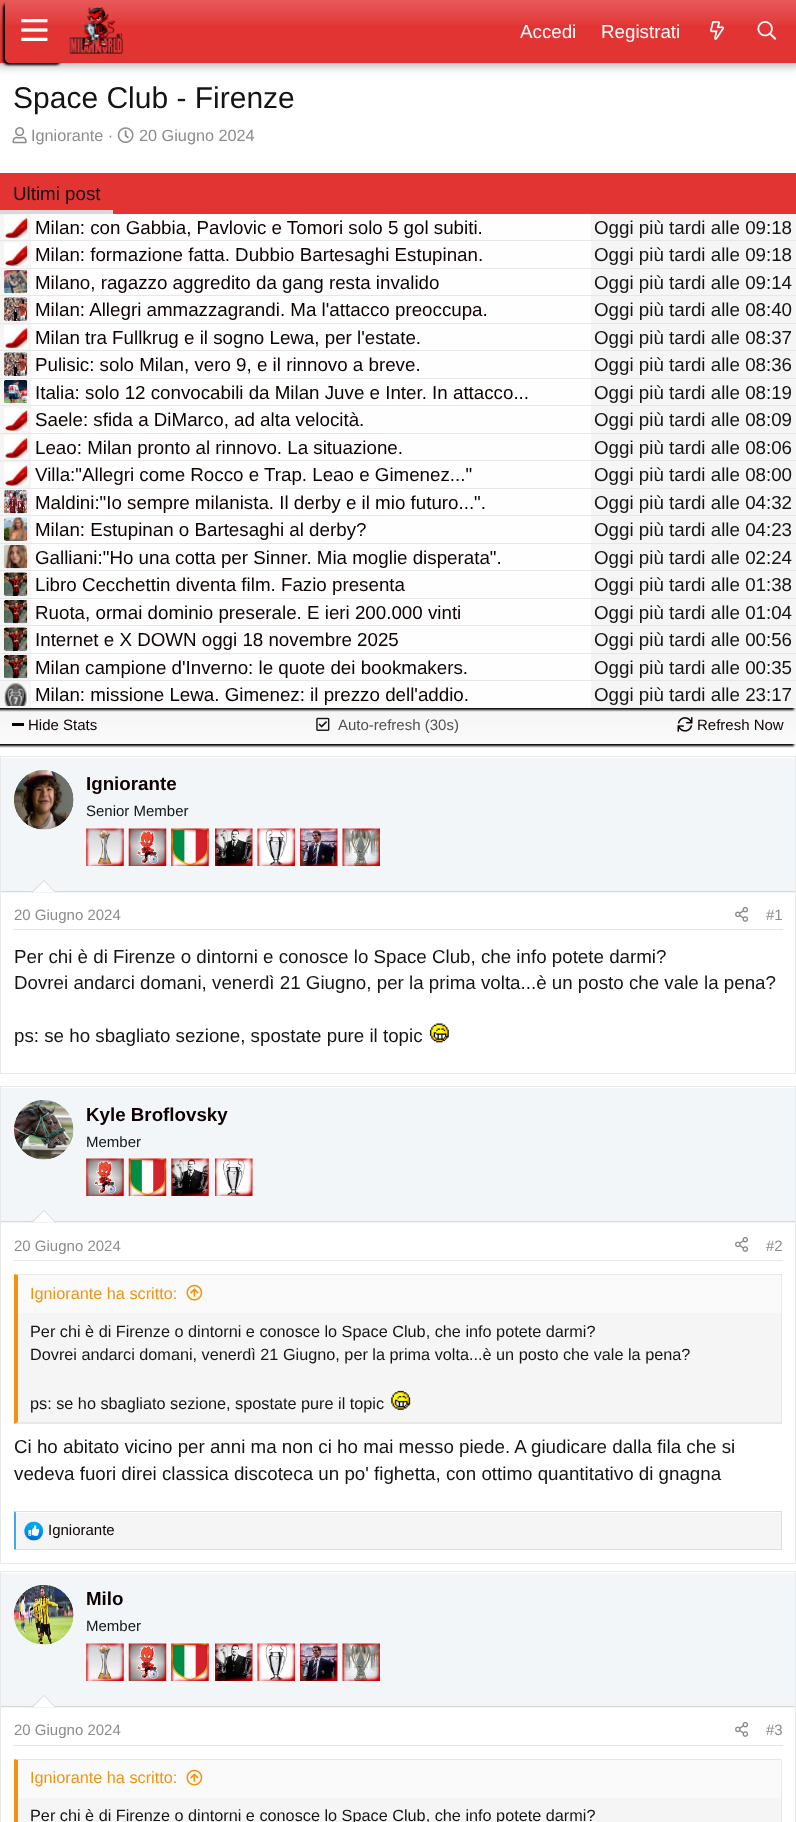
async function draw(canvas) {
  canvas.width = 796
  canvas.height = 1822
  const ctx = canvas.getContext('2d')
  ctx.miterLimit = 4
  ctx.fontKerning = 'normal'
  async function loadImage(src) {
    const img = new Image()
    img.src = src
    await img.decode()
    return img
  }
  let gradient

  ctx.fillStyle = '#fff'
  ctx.fillRect(0, 0, 796, 1822)
  ctx.fillStyle = '#0000004d'
  ctx.filter = 'blur(5px)'
  ctx.beginPath()
  ctx.rect(-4, -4, 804, 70)
  ctx.fill()
  ctx.filter = 'none'
  ctx.fillStyle = '#e33434'
  ctx.fillRect(0, 0, 796, 63)
  ctx.drawImage(await loadImage('image0.png'), 0, 0, 796, 25)
  ctx.save()
  ctx.beginPath()
  ctx.moveTo(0, 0)
  ctx.lineTo(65, 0)
  ctx.lineTo(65, 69)
  ctx.lineTo(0, 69)
  ctx.closePath()
  ctx.moveTo(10, 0)
  ctx.lineTo(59, 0)
  ctx.bezierCurveTo(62, 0, 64, 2, 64, 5)
  ctx.lineTo(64, 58)
  ctx.bezierCurveTo(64, 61, 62, 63, 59, 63)
  ctx.lineTo(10, 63)
  ctx.bezierCurveTo(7, 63, 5, 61, 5, 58)
  ctx.lineTo(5, 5)
  ctx.bezierCurveTo(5, 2, 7, 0, 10, 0)
  ctx.closePath()
  ctx.clip('evenodd')
  ctx.fillStyle = '#000'
  ctx.filter = 'blur(1px)'
  ctx.beginPath()
  ctx.roundRect(3, 3, 58, 62, 5)
  ctx.fill()
  ctx.filter = 'none'
  ctx.restore()
  ctx.drawImage(await loadImage('image1.png'), 21, 19, 27, 22)
  ctx.drawImage(await loadImage('image2.png'), 69, 7, 54, 47)
  ctx.font = '18.75px Liberation Sans'
  ctx.fillStyle = '#fefefe'
  ctx.fillText('Accedi', 520, 38)
  ctx.fillText('Registrati', 601, 38)
  ctx.drawImage(await loadImage('image3.png'), 710, 21, 15, 19)
  ctx.drawImage(await loadImage('image4.png'), 757, 21, 20, 19)
  ctx.font = '30px Liberation Sans'
  ctx.fillStyle = '#141414'
  ctx.fillText('Space Club - Firenze', 13, 108)
  ctx.drawImage(await loadImage('image5.png'), 12, 127, 15, 17)
  ctx.font = '16.25px Liberation Sans'
  ctx.fillStyle = '#8c8c8c'
  ctx.fillText('Igniorante ·', 31, 141)
  ctx.drawImage(await loadImage('image6.png'), 117, 127, 17, 16)
  ctx.fillText('20 Giugno 2024', 139, 141)
  ctx.fillStyle = '#e33434'
  ctx.fillRect(0, 173, 796, 41)
  ctx.fillStyle = '#000'
  ctx.filter = 'blur(1px)'
  ctx.beginPath()
  ctx.rect(-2, 710, 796, 36)
  ctx.fill()
  ctx.filter = 'none'
  gradient = ctx.createLinearGradient(398, 708, 398, 744)
  gradient.addColorStop(0, '#f5f5f5')
  gradient.addColorStop(1, '#fafafa')
  ctx.fillStyle = gradient
  ctx.fillRect(0, 708, 796, 36)
  ctx.fillStyle = '#000'
  ctx.filter = 'blur(1px)'
  ctx.beginPath()
  ctx.rect(-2, 216, 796, 494)
  ctx.fill()
  ctx.filter = 'none'
  ctx.fillStyle = '#d8d8d8'
  ctx.fillRect(0, 210, 113, 4)
  ctx.font = '18.75px Liberation Sans'
  ctx.fillStyle = '#141414'
  ctx.fillText('Ultimi post', 13, 200)
  ctx.fillStyle = '#fefefe'
  ctx.fillRect(31, 214, 560, 494)
  ctx.fillStyle = '#f5f5f5'
  ctx.fillRect(0, 214, 31, 26)
  ctx.fillStyle = '#e7e7e7'
  ctx.fillRect(0, 240, 796, 1)
  ctx.fillStyle = '#fefefe'
  ctx.beginPath()
  ctx.roundRect(4, 215, 24, 24, 2.5)
  ctx.fill()
  ctx.drawImage(await loadImage('image7.png'), 4, 215, 24, 24)
  ctx.fillStyle = '#0d0101'
  ctx.fillText('Milan: con Gabbia, Pavlovic e Tomori solo 5 gol subiti.', 35, 234)
  ctx.fillStyle = '#f5f5f5'
  ctx.fillRect(591, 214, 205, 26)
  ctx.fillStyle = '#141414'
  ctx.fillText('Oggi più tardi alle 09:18', 594, 234)
  ctx.fillStyle = '#f5f5f5'
  ctx.fillRect(0, 241, 31, 27)
  ctx.fillStyle = '#e7e7e7'
  ctx.fillRect(0, 268, 796, 1)
  ctx.fillStyle = '#fefefe'
  ctx.beginPath()
  ctx.roundRect(4, 243, 24, 23, 2.5)
  ctx.fill()
  ctx.drawImage(await loadImage('image8.png'), 4, 242, 24, 24)
  ctx.fillStyle = '#0d0101'
  ctx.fillText('Milan: formazione fatta. Dubbio Bartesaghi Estupinan.', 35, 261)
  ctx.fillStyle = '#f5f5f5'
  ctx.fillRect(591, 241, 205, 27)
  ctx.fillStyle = '#141414'
  ctx.fillText('Oggi più tardi alle 09:18', 594, 261)
  ctx.fillStyle = '#f5f5f5'
  ctx.fillRect(0, 269, 31, 26)
  ctx.fillStyle = '#e7e7e7'
  ctx.fillRect(0, 295, 796, 1)
  ctx.fillStyle = '#fefefe'
  ctx.beginPath()
  ctx.roundRect(4, 270, 24, 24, 2.5)
  ctx.fill()
  ctx.drawImage(await loadImage('image9.png'), 4, 270, 24, 24)
  ctx.fillStyle = '#0d0101'
  ctx.fillText('Milano, ragazzo aggredito da gang resta invalido', 35, 289)
  ctx.fillStyle = '#f5f5f5'
  ctx.fillRect(591, 269, 205, 26)
  ctx.fillStyle = '#141414'
  ctx.fillText('Oggi più tardi alle 09:14', 594, 289)
  ctx.fillStyle = '#f5f5f5'
  ctx.fillRect(0, 296, 31, 27)
  ctx.fillStyle = '#e7e7e7'
  ctx.fillRect(0, 323, 796, 1)
  ctx.fillStyle = '#fefefe'
  ctx.beginPath()
  ctx.roundRect(4, 298, 24, 23, 2.5)
  ctx.fill()
  ctx.drawImage(await loadImage('image10.png'), 4, 297, 24, 24)
  ctx.fillStyle = '#0d0101'
  ctx.fillText('Milan: Allegri ammazzagrandi. Ma l\'attacco preoccupa.', 35, 316)
  ctx.fillStyle = '#f5f5f5'
  ctx.fillRect(591, 296, 205, 27)
  ctx.fillStyle = '#141414'
  ctx.fillText('Oggi più tardi alle 08:40', 594, 316)
  ctx.fillStyle = '#f5f5f5'
  ctx.fillRect(0, 324, 31, 26)
  ctx.fillStyle = '#e7e7e7'
  ctx.fillRect(0, 350, 796, 1)
  ctx.fillStyle = '#fefefe'
  ctx.beginPath()
  ctx.roundRect(4, 325, 24, 24, 2.5)
  ctx.fill()
  ctx.drawImage(await loadImage('image7.png'), 4, 325, 24, 24)
  ctx.fillStyle = '#0d0101'
  ctx.fillText('Milan tra Fullkrug e il sogno Lewa, per l\'estate.', 35, 344)
  ctx.fillStyle = '#f5f5f5'
  ctx.fillRect(591, 324, 205, 26)
  ctx.fillStyle = '#141414'
  ctx.fillText('Oggi più tardi alle 08:37', 594, 344)
  ctx.fillStyle = '#f5f5f5'
  ctx.fillRect(0, 351, 31, 27)
  ctx.fillStyle = '#e7e7e7'
  ctx.fillRect(0, 378, 796, 1)
  ctx.fillStyle = '#fefefe'
  ctx.beginPath()
  ctx.roundRect(4, 353, 24, 23, 2.5)
  ctx.fill()
  ctx.drawImage(await loadImage('image10.png'), 4, 352, 24, 24)
  ctx.fillStyle = '#0d0101'
  ctx.fillText('Pulisic: solo Milan, vero 9, e il rinnovo a breve.', 35, 371)
  ctx.fillStyle = '#f5f5f5'
  ctx.fillRect(591, 351, 205, 27)
  ctx.fillStyle = '#141414'
  ctx.fillText('Oggi più tardi alle 08:36', 594, 371)
  ctx.fillStyle = '#f5f5f5'
  ctx.fillRect(0, 379, 31, 26)
  ctx.fillStyle = '#e7e7e7'
  ctx.fillRect(0, 405, 796, 1)
  ctx.fillStyle = '#fefefe'
  ctx.beginPath()
  ctx.roundRect(4, 380, 24, 24, 2.5)
  ctx.fill()
  ctx.drawImage(await loadImage('image11.png'), 4, 380, 24, 24)
  ctx.fillStyle = '#0d0101'
  ctx.fillText('Italia: solo 12 convocabili da Milan Juve e Inter. In attacco...', 35, 399)
  ctx.fillStyle = '#f5f5f5'
  ctx.fillRect(591, 379, 205, 26)
  ctx.fillStyle = '#141414'
  ctx.fillText('Oggi più tardi alle 08:19', 594, 399)
  ctx.fillStyle = '#f5f5f5'
  ctx.fillRect(0, 406, 31, 27)
  ctx.fillStyle = '#e7e7e7'
  ctx.fillRect(0, 433, 796, 1)
  ctx.fillStyle = '#fefefe'
  ctx.beginPath()
  ctx.roundRect(4, 408, 24, 23, 2.5)
  ctx.fill()
  ctx.drawImage(await loadImage('image8.png'), 4, 407, 24, 24)
  ctx.fillStyle = '#0d0101'
  ctx.fillText('Saele: sfida a DiMarco, ad alta velocità.', 35, 426)
  ctx.fillStyle = '#f5f5f5'
  ctx.fillRect(591, 406, 205, 27)
  ctx.fillStyle = '#141414'
  ctx.fillText('Oggi più tardi alle 08:09', 594, 426)
  ctx.fillStyle = '#f5f5f5'
  ctx.fillRect(0, 434, 31, 26)
  ctx.fillStyle = '#e7e7e7'
  ctx.fillRect(0, 460, 796, 1)
  ctx.fillStyle = '#fefefe'
  ctx.beginPath()
  ctx.roundRect(4, 435, 24, 24, 2.5)
  ctx.fill()
  ctx.drawImage(await loadImage('image7.png'), 4, 435, 24, 24)
  ctx.fillStyle = '#0d0101'
  ctx.fillText('Leao: Milan pronto al rinnovo. La situazione.', 35, 454)
  ctx.fillStyle = '#f5f5f5'
  ctx.fillRect(591, 434, 205, 26)
  ctx.fillStyle = '#141414'
  ctx.fillText('Oggi più tardi alle 08:06', 594, 454)
  ctx.fillStyle = '#f5f5f5'
  ctx.fillRect(0, 461, 31, 27)
  ctx.fillStyle = '#e7e7e7'
  ctx.fillRect(0, 488, 796, 1)
  ctx.fillStyle = '#fefefe'
  ctx.beginPath()
  ctx.roundRect(4, 463, 24, 23, 2.5)
  ctx.fill()
  ctx.drawImage(await loadImage('image8.png'), 4, 462, 24, 24)
  ctx.fillStyle = '#0d0101'
  ctx.fillText('Villa:"Allegri come Rocco e Trap. Leao e Gimenez..."', 35, 481)
  ctx.fillStyle = '#f5f5f5'
  ctx.fillRect(591, 461, 205, 27)
  ctx.fillStyle = '#141414'
  ctx.fillText('Oggi più tardi alle 08:00', 594, 481)
  ctx.fillStyle = '#f5f5f5'
  ctx.fillRect(0, 489, 31, 26)
  ctx.fillStyle = '#e7e7e7'
  ctx.fillRect(0, 515, 796, 1)
  ctx.fillStyle = '#fefefe'
  ctx.beginPath()
  ctx.roundRect(4, 490, 24, 24, 2.5)
  ctx.fill()
  ctx.drawImage(await loadImage('image12.png'), 4, 490, 24, 24)
  ctx.fillStyle = '#0d0101'
  ctx.fillText('Maldini:"Io sempre milanista. Il derby e il mio futuro...".', 35, 509)
  ctx.fillStyle = '#f5f5f5'
  ctx.fillRect(591, 489, 205, 26)
  ctx.fillStyle = '#141414'
  ctx.fillText('Oggi più tardi alle 04:32', 594, 509)
  ctx.fillStyle = '#f5f5f5'
  ctx.fillRect(0, 516, 31, 27)
  ctx.fillStyle = '#e7e7e7'
  ctx.fillRect(0, 543, 796, 1)
  ctx.fillStyle = '#fefefe'
  ctx.beginPath()
  ctx.roundRect(4, 518, 24, 23, 2.5)
  ctx.fill()
  ctx.drawImage(await loadImage('image13.png'), 4, 517, 24, 24)
  ctx.fillStyle = '#0d0101'
  ctx.fillText('Milan: Estupinan o Bartesaghi al derby?', 35, 536)
  ctx.fillStyle = '#f5f5f5'
  ctx.fillRect(591, 516, 205, 27)
  ctx.fillStyle = '#141414'
  ctx.fillText('Oggi più tardi alle 04:23', 594, 536)
  ctx.fillStyle = '#f5f5f5'
  ctx.fillRect(0, 544, 31, 26)
  ctx.fillStyle = '#e7e7e7'
  ctx.fillRect(0, 570, 796, 1)
  ctx.fillStyle = '#fefefe'
  ctx.beginPath()
  ctx.roundRect(4, 545, 24, 24, 2.5)
  ctx.fill()
  ctx.drawImage(await loadImage('image14.png'), 4, 545, 24, 24)
  ctx.fillStyle = '#0d0101'
  ctx.fillText('Galliani:"Ho una cotta per Sinner. Mia moglie disperata".', 35, 564)
  ctx.fillStyle = '#f5f5f5'
  ctx.fillRect(591, 544, 205, 26)
  ctx.fillStyle = '#141414'
  ctx.fillText('Oggi più tardi alle 02:24', 594, 564)
  ctx.fillStyle = '#f5f5f5'
  ctx.fillRect(0, 571, 31, 27)
  ctx.fillStyle = '#e7e7e7'
  ctx.fillRect(0, 598, 796, 1)
  ctx.fillStyle = '#fefefe'
  ctx.beginPath()
  ctx.roundRect(4, 573, 24, 23, 2.5)
  ctx.fill()
  ctx.drawImage(await loadImage('image15.png'), 4, 572, 24, 24)
  ctx.fillStyle = '#0d0101'
  ctx.fillText('Libro Cecchettin diventa film. Fazio presenta', 35, 591)
  ctx.fillStyle = '#f5f5f5'
  ctx.fillRect(591, 571, 205, 27)
  ctx.fillStyle = '#141414'
  ctx.fillText('Oggi più tardi alle 01:38', 594, 591)
  ctx.fillStyle = '#f5f5f5'
  ctx.fillRect(0, 599, 31, 26)
  ctx.fillStyle = '#e7e7e7'
  ctx.fillRect(0, 625, 796, 1)
  ctx.fillStyle = '#fefefe'
  ctx.beginPath()
  ctx.roundRect(4, 600, 24, 24, 2.5)
  ctx.fill()
  ctx.drawImage(await loadImage('image16.png'), 4, 600, 24, 24)
  ctx.fillStyle = '#0d0101'
  ctx.fillText('Ruota, ormai dominio preserale. E ieri 200.000 vinti', 35, 619)
  ctx.fillStyle = '#f5f5f5'
  ctx.fillRect(591, 599, 205, 26)
  ctx.fillStyle = '#141414'
  ctx.fillText('Oggi più tardi alle 01:04', 594, 619)
  ctx.fillStyle = '#f5f5f5'
  ctx.fillRect(0, 626, 31, 27)
  ctx.fillStyle = '#e7e7e7'
  ctx.fillRect(0, 653, 796, 1)
  ctx.fillStyle = '#fefefe'
  ctx.beginPath()
  ctx.roundRect(4, 628, 24, 23, 2.5)
  ctx.fill()
  ctx.drawImage(await loadImage('image15.png'), 4, 627, 24, 24)
  ctx.fillStyle = '#0d0101'
  ctx.fillText('Internet e X DOWN oggi 18 novembre 2025', 35, 646)
  ctx.fillStyle = '#f5f5f5'
  ctx.fillRect(591, 626, 205, 27)
  ctx.fillStyle = '#141414'
  ctx.fillText('Oggi più tardi alle 00:56', 594, 646)
  ctx.fillStyle = '#f5f5f5'
  ctx.fillRect(0, 654, 31, 26)
  ctx.fillStyle = '#e7e7e7'
  ctx.fillRect(0, 680, 796, 1)
  ctx.fillStyle = '#fefefe'
  ctx.beginPath()
  ctx.roundRect(4, 655, 24, 24, 2.5)
  ctx.fill()
  ctx.drawImage(await loadImage('image16.png'), 4, 655, 24, 24)
  ctx.fillStyle = '#0d0101'
  ctx.fillText('Milan campione d\'Inverno: le quote dei bookmakers.', 35, 674)
  ctx.fillStyle = '#f5f5f5'
  ctx.fillRect(591, 654, 205, 26)
  ctx.fillStyle = '#141414'
  ctx.fillText('Oggi più tardi alle 00:35', 594, 674)
  ctx.fillStyle = '#f5f5f5'
  ctx.fillRect(0, 681, 31, 27)
  ctx.fillStyle = '#fefefe'
  ctx.beginPath()
  ctx.roundRect(4, 683, 24, 23, 2.5)
  ctx.fill()
  ctx.drawImage(await loadImage('image17.png'), 4, 683, 23, 23)
  ctx.fillStyle = '#0d0101'
  ctx.fillText('Milan: missione Lewa. Gimenez: il prezzo dell\'addio.', 35, 701)
  ctx.fillStyle = '#f5f5f5'
  ctx.fillRect(591, 681, 205, 27)
  ctx.fillStyle = '#141414'
  ctx.fillText('Oggi più tardi alle 23:17', 594, 701)
  ctx.fillStyle = '#0d0101'
  ctx.fillRect(12, 723, 12, 3)
  ctx.font = '15px Liberation Sans'
  ctx.fillText('Hide Stats', 28, 730)
  ctx.drawImage(await loadImage('image18.png'), 316, 717, 14, 14)
  ctx.fillStyle = '#505050'
  ctx.fillText('Auto-refresh (30s)', 338, 730)
  ctx.drawImage(await loadImage('image19.png'), 677, 717, 16, 15)
  ctx.fillStyle = '#0d0101'
  ctx.fillText('Refresh Now', 697, 730)
  ctx.strokeStyle = '#e9e9e9'
  ctx.strokeRect(0.5, 756.5, 795, 317)
  ctx.fillStyle = '#f2f6f8'
  ctx.fillRect(1, 758, 794, 135)
  ctx.fillStyle = '#d8d8d8'
  ctx.fillRect(1, 891, 794, 1)
  ctx.fillStyle = '#fefefe'
  ctx.beginPath()
  ctx.arc(44, 800, 30, 0, 2 * Math.PI)
  ctx.fill()
  ctx.drawImage(await loadImage('image20.png'), 14, 770, 60, 60)
  ctx.font = 'bold 18.75px Liberation Sans'
  ctx.fillStyle = '#0d0101'
  ctx.fillText('Igniorante', 86, 790)
  ctx.font = '15px Liberation Sans'
  ctx.fillStyle = '#141414'
  ctx.fillText('Senior Member', 86, 816)
  ctx.drawImage(await loadImage('image21.png'), 86, 828, 38, 38)
  ctx.drawImage(await loadImage('image22.png'), 128, 828, 39, 38)
  ctx.drawImage(await loadImage('image23.png'), 171, 828, 38, 38)
  ctx.drawImage(await loadImage('image24.png'), 215, 828, 38, 38)
  ctx.drawImage(await loadImage('image25.png'), 257, 828, 38, 38)
  ctx.drawImage(await loadImage('image26.png'), 300, 828, 38, 38)
  ctx.drawImage(await loadImage('image27.png'), 342, 828, 38, 38)
  ctx.fillStyle = '#d8d8d8'
  ctx.beginPath()
  ctx.moveTo(56, 892.5)
  ctx.lineTo(31, 892.5)
  ctx.lineTo(44, 880)
  ctx.closePath()
  ctx.fill()
  ctx.fillStyle = '#fefefe'
  ctx.beginPath()
  ctx.moveTo(55, 892.5)
  ctx.lineTo(32.5, 892.5)
  ctx.lineTo(44, 881)
  ctx.closePath()
  ctx.fill()
  ctx.fillStyle = '#e7e7e7'
  ctx.fillRect(14, 929, 769, 1)
  ctx.fillStyle = '#8c8c8c'
  ctx.fillText('20 Giugno 2024', 14, 920)
  ctx.drawImage(await loadImage('image28.png'), 735, 906, 14, 16)
  ctx.fillText('#1', 766, 920)
  ctx.font = '18.75px Liberation Sans'
  ctx.fillStyle = '#141414'
  ctx.fillText('Per chi è di Firenze o dintorni e conosce lo Space Club, che info potete darmi?', 14, 963)
  ctx.fillText('Dovrei andarci domani, venerdì 21 Giugno, per la prima volta...è un posto che vale la pena?', 14, 989)
  ctx.fillText('ps: se ho sbagliato sezione, spostate pure il topic', 14, 1042)
  ctx.drawImage(await loadImage('image29.png'), 429, 1023, 20, 20)
  ctx.strokeRect(0.5, 1086.5, 795, 477)
  ctx.fillStyle = '#f2f6f8'
  ctx.fillRect(1, 1088, 794, 135)
  ctx.fillStyle = '#d8d8d8'
  ctx.fillRect(1, 1221, 794, 1)
  ctx.fillStyle = '#fefefe'
  ctx.beginPath()
  ctx.arc(44, 1130, 30, 0, 2 * Math.PI)
  ctx.fill()
  ctx.drawImage(await loadImage('image30.png'), 14, 1100, 60, 60)
  ctx.font = 'bold 18.75px Liberation Sans'
  ctx.fillStyle = '#0d0101'
  ctx.fillText('Kyle Broflovsky', 86, 1121)
  ctx.font = '15px Liberation Sans'
  ctx.fillStyle = '#141414'
  ctx.fillText('Member', 86, 1147)
  ctx.drawImage(await loadImage('image31.png'), 86, 1158, 38, 38)
  ctx.drawImage(await loadImage('image32.png'), 128, 1158, 39, 38)
  ctx.drawImage(await loadImage('image33.png'), 171, 1158, 38, 38)
  ctx.drawImage(await loadImage('image34.png'), 215, 1158, 38, 38)
  ctx.fillStyle = '#d8d8d8'
  ctx.beginPath()
  ctx.moveTo(56, 1222.5)
  ctx.lineTo(31, 1222.5)
  ctx.lineTo(44, 1210)
  ctx.closePath()
  ctx.fill()
  ctx.fillStyle = '#fefefe'
  ctx.beginPath()
  ctx.moveTo(55, 1222.5)
  ctx.lineTo(32.5, 1222.5)
  ctx.lineTo(44, 1211)
  ctx.closePath()
  ctx.fill()
  ctx.fillStyle = '#e7e7e7'
  ctx.fillRect(14, 1260, 769, 1)
  ctx.fillStyle = '#8c8c8c'
  ctx.fillText('20 Giugno 2024', 14, 1251)
  ctx.drawImage(await loadImage('image28.png'), 735, 1236, 14, 16)
  ctx.fillText('#2', 766, 1251)
  ctx.fillStyle = '#f5f5f5'
  ctx.fillRect(18, 1313, 763, 109)
  ctx.fillStyle = '#e7e7e7'
  ctx.beginPath()
  ctx.moveTo(14, 1274)
  ctx.lineTo(782, 1274)
  ctx.lineTo(781, 1275)
  ctx.lineTo(18, 1275)
  ctx.closePath()
  ctx.fill()
  ctx.fillRect(781, 1274, 1, 150)
  ctx.beginPath()
  ctx.moveTo(782, 1424)
  ctx.lineTo(14, 1424)
  ctx.lineTo(18, 1422)
  ctx.lineTo(781, 1422)
  ctx.closePath()
  ctx.fill()
  ctx.fillStyle = '#f2930d'
  ctx.beginPath()
  ctx.moveTo(14, 1424)
  ctx.lineTo(14, 1274)
  ctx.lineTo(18, 1275)
  ctx.lineTo(18, 1422)
  ctx.closePath()
  ctx.fill()
  ctx.fillStyle = '#fafafa'
  ctx.fillRect(18, 1275, 763, 38)
  ctx.font = '16.25px Liberation Sans'
  ctx.fillStyle = '#f2930d'
  ctx.fillText('Igniorante ha scritto:', 30, 1299)
  ctx.drawImage(await loadImage('image35.png'), 186, 1284, 17, 17)
  ctx.fillStyle = '#141414'
  ctx.fillText('Per chi è di Firenze o dintorni e conosce lo Space Club, che info potete darmi?', 30, 1337)
  ctx.fillText('Dovrei andarci domani, venerdì 21 Giugno, per la prima volta...è un posto che vale la pena?', 30, 1360)
  ctx.fillText('ps: se ho sbagliato sezione, spostate pure il topic', 30, 1409)
  ctx.drawImage(await loadImage('image36.png'), 391, 1390, 20, 20)
  ctx.font = '18.75px Liberation Sans'
  ctx.fillText('Ci ho abitato vicino per anni ma non ci ho mai messo piede. A giudicare dalla fila che si', 14, 1453)
  ctx.fillText('vedeva fuori direi classica discoteca un po\' fighetta, con ottimo quantitativo di gnagna', 14, 1480)
  ctx.fillStyle = '#f5f5f5'
  ctx.fillRect(16, 1513, 765, 36)
  ctx.fillStyle = '#dfdfdf'
  ctx.beginPath()
  ctx.moveTo(14, 1511)
  ctx.lineTo(782, 1511)
  ctx.lineTo(781, 1512)
  ctx.lineTo(16, 1512)
  ctx.closePath()
  ctx.fill()
  ctx.fillRect(781, 1511, 1, 39)
  ctx.beginPath()
  ctx.moveTo(782, 1550)
  ctx.lineTo(14, 1550)
  ctx.lineTo(16, 1549)
  ctx.lineTo(781, 1549)
  ctx.closePath()
  ctx.fill()
  ctx.fillStyle = '#47a7eb'
  ctx.beginPath()
  ctx.moveTo(14, 1550)
  ctx.lineTo(14, 1511)
  ctx.lineTo(16, 1512.5)
  ctx.lineTo(16, 1549)
  ctx.closePath()
  ctx.fill()
  ctx.drawImage(await loadImage('image37.png'), 24, 1521, 19, 20)
  ctx.font = '15px Liberation Sans'
  ctx.fillStyle = '#0d0101'
  ctx.fillText('Igniorante', 48, 1535)
  ctx.strokeRect(0.5, 1571.5, 795, 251)
  ctx.fillStyle = '#f2f6f8'
  ctx.fillRect(1, 1573, 794, 135)
  ctx.fillStyle = '#d8d8d8'
  ctx.fillRect(1, 1706, 794, 1)
  ctx.fillStyle = '#fefefe'
  ctx.beginPath()
  ctx.arc(44, 1615, 30, 0, 2 * Math.PI)
  ctx.fill()
  ctx.drawImage(await loadImage('image38.png'), 14, 1585, 60, 60)
  ctx.font = 'bold 18.75px Liberation Sans'
  ctx.fillStyle = '#0d0101'
  ctx.fillText('Milo', 86, 1605)
  ctx.font = '15px Liberation Sans'
  ctx.fillStyle = '#141414'
  ctx.fillText('Member', 86, 1631)
  ctx.drawImage(await loadImage('image21.png'), 86, 1643, 38, 38)
  ctx.drawImage(await loadImage('image22.png'), 128, 1643, 39, 38)
  ctx.drawImage(await loadImage('image23.png'), 171, 1643, 38, 38)
  ctx.drawImage(await loadImage('image24.png'), 215, 1643, 38, 38)
  ctx.drawImage(await loadImage('image25.png'), 257, 1643, 38, 38)
  ctx.drawImage(await loadImage('image26.png'), 300, 1643, 38, 38)
  ctx.drawImage(await loadImage('image27.png'), 342, 1643, 38, 38)
  ctx.fillStyle = '#d8d8d8'
  ctx.beginPath()
  ctx.moveTo(56, 1707.5)
  ctx.lineTo(31, 1707.5)
  ctx.lineTo(44, 1695)
  ctx.closePath()
  ctx.fill()
  ctx.fillStyle = '#fefefe'
  ctx.beginPath()
  ctx.moveTo(55, 1707.5)
  ctx.lineTo(32.5, 1707.5)
  ctx.lineTo(44, 1696)
  ctx.closePath()
  ctx.fill()
  ctx.fillStyle = '#e7e7e7'
  ctx.fillRect(14, 1745, 769, 1)
  ctx.fillStyle = '#8c8c8c'
  ctx.fillText('20 Giugno 2024', 14, 1735)
  ctx.drawImage(await loadImage('image28.png'), 735, 1721, 14, 16)
  ctx.fillText('#3', 766, 1735)
  ctx.fillStyle = '#f5f5f5'
  ctx.fillRect(18, 1798, 763, 24)
  ctx.fillStyle = '#e7e7e7'
  ctx.beginPath()
  ctx.moveTo(14, 1759)
  ctx.lineTo(782, 1759)
  ctx.lineTo(781, 1760)
  ctx.lineTo(18, 1760)
  ctx.closePath()
  ctx.fill()
  ctx.fillRect(781, 1759, 1, 63)
  ctx.fillStyle = '#f2930d'
  ctx.beginPath()
  ctx.moveTo(14, 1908)
  ctx.lineTo(14, 1759)
  ctx.lineTo(18, 1760)
  ctx.lineTo(18, 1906)
  ctx.closePath()
  ctx.fill()
  ctx.fillStyle = '#fafafa'
  ctx.fillRect(18, 1760, 763, 38)
  ctx.font = '16.25px Liberation Sans'
  ctx.fillStyle = '#f2930d'
  ctx.fillText('Igniorante ha scritto:', 30, 1783)
  ctx.drawImage(await loadImage('image35.png'), 186, 1769, 17, 17)
  ctx.fillStyle = '#141414'
  ctx.fillText('Per chi è di Firenze o dintorni e conosce lo Space Club, che info potete darmi?', 30, 1821)
}

draw(document.querySelector('canvas'))
